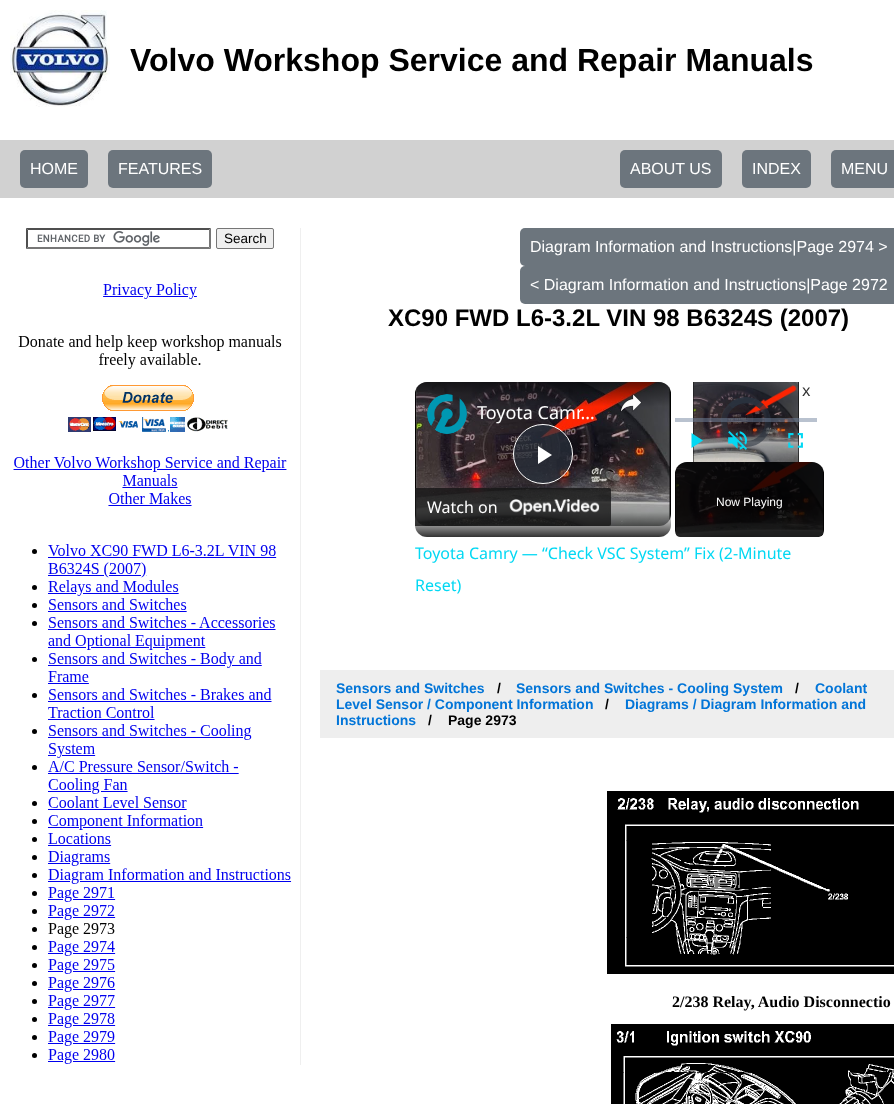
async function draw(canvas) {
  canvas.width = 894
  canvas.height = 1104
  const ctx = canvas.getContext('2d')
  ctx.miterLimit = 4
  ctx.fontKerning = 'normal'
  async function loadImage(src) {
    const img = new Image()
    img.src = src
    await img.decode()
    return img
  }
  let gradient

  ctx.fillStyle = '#fff'
  ctx.fillRect(0, 0, 894, 1104)
  ctx.drawImage(await loadImage('image0.png'), 10, 10, 100, 97)
  ctx.font = 'bold 32px Liberation Sans'
  ctx.fillStyle = '#000'
  ctx.fillText('Volvo Workshop Service and Repair Manuals', 130, 71)
  ctx.fillStyle = '#d1d1d1'
  ctx.fillRect(0, 140, 894, 58)
  ctx.fillStyle = '#6c757d'
  ctx.beginPath()
  ctx.roundRect(20, 150, 68, 38, 5)
  ctx.fill()
  ctx.font = '16px Liberation Sans'
  ctx.fillStyle = '#fff'
  ctx.fillText('HOME', 30, 174)
  ctx.fillStyle = '#6c757d'
  ctx.beginPath()
  ctx.roundRect(108, 150, 104, 38, 5)
  ctx.fill()
  ctx.fillStyle = '#fff'
  ctx.fillText('FEATURES', 118, 174)
  ctx.fillStyle = '#6c757d'
  ctx.beginPath()
  ctx.roundRect(620, 150, 102, 38, 5)
  ctx.fill()
  ctx.fillStyle = '#fff'
  ctx.fillText('ABOUT US', 630, 174)
  ctx.fillStyle = '#6c757d'
  ctx.beginPath()
  ctx.roundRect(742, 150, 69, 38, 5)
  ctx.fill()
  ctx.fillStyle = '#fff'
  ctx.fillText('INDEX', 752, 174)
  ctx.fillStyle = '#6c757d'
  ctx.beginPath()
  ctx.roundRect(831, 150, 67, 38, 5)
  ctx.fill()
  ctx.fillStyle = '#fff'
  ctx.fillText('MENU', 841, 174)
  ctx.fillStyle = '#efefef'
  ctx.fillRect(300, 228, 1, 837)
  ctx.drawImage(await loadImage('image1.png'), 37, 231, 123, 15)
  ctx.fillStyle = '#4f4f4f'
  ctx.beginPath()
  ctx.moveTo(26, 228)
  ctx.lineTo(211, 228)
  ctx.lineTo(209, 230)
  ctx.lineTo(28, 230)
  ctx.closePath()
  ctx.fill()
  ctx.fillStyle = '#767676'
  ctx.beginPath()
  ctx.moveTo(211, 228)
  ctx.lineTo(211, 249)
  ctx.lineTo(209, 247)
  ctx.lineTo(209, 230)
  ctx.closePath()
  ctx.fill()
  ctx.beginPath()
  ctx.moveTo(211, 249)
  ctx.lineTo(26, 249)
  ctx.lineTo(28, 247)
  ctx.lineTo(209, 247)
  ctx.closePath()
  ctx.fill()
  ctx.fillStyle = '#4f4f4f'
  ctx.beginPath()
  ctx.moveTo(26, 249)
  ctx.lineTo(26, 228)
  ctx.lineTo(28, 230)
  ctx.lineTo(28, 247)
  ctx.closePath()
  ctx.fill()
  ctx.fillStyle = '#efefef'
  ctx.beginPath()
  ctx.roundRect(216.5, 228.5, 57, 20, 1.5)
  ctx.fill()
  ctx.strokeStyle = '#767676'
  ctx.stroke()
  ctx.font = '13.5px Liberation Sans'
  ctx.fillStyle = '#000'
  ctx.fillText('Search', 224, 243)
  ctx.drawImage(await loadImage('image2.png'), 13, 283, 279, 781)
  ctx.fillStyle = '#6c757d'
  ctx.beginPath()
  ctx.roundRect(520, 228, 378, 38, 5)
  ctx.fill()
  ctx.font = '16px Liberation Sans'
  ctx.fillStyle = '#fff'
  ctx.fillText('Diagram Information and Instructions|Page 2974 >', 530, 252)
  ctx.fillStyle = '#6c757d'
  ctx.beginPath()
  ctx.roundRect(520, 266, 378, 38, 5)
  ctx.fill()
  ctx.fillStyle = '#fff'
  ctx.fillText('< Diagram Information and Instructions|Page 2972', 530, 290)
  ctx.font = 'bold 24px Liberation Sans'
  ctx.fillStyle = '#000'
  ctx.fillText('XC90 FWD L6-3.2L VIN 98 B6324S (2007)', 388, 326)
  ctx.drawImage(await loadImage('image3.png'), 415, 382, 256, 144)
  ctx.fillStyle = '#2b333fb3'
  ctx.beginPath()
  ctx.arc(543, 454, 29.5, 0, 2 * Math.PI)
  ctx.fill()
  ctx.strokeStyle = '#fff'
  ctx.stroke()
  ctx.fillStyle = '#fff'
  ctx.beginPath()
  ctx.moveTo(538, 446)
  ctx.lineTo(538, 464)
  ctx.lineTo(552, 455)
  ctx.closePath()
  ctx.fill()
  gradient = ctx.createLinearGradient(543, 382, 543, 537)
  gradient.addColorStop(0, '#00000099')
  gradient.addColorStop(0.16, '#00000000')
  gradient.addColorStop(0.84, '#00000000')
  gradient.addColorStop(1, '#000000cc')
  ctx.fillStyle = gradient
  ctx.beginPath()
  ctx.roundRect(415, 382, 256, 155, 12)
  ctx.fill()
  ctx.drawImage(await loadImage('image4.png'), 427, 394, 40, 40)
  ctx.font = '18px Noto Sans'
  ctx.fillStyle = '#fff'
  ctx.fillText('Toyota Camr…', 477, 419)
  ctx.drawImage(await loadImage('image5.png'), 620, 392, 22, 20)
  ctx.fillStyle = '#171717cc'
  ctx.beginPath()
  ctx.roundRect(415, 488, 196, 38, [0, 2, 2, 0])
  ctx.fill()
  ctx.font = '16px Noto Sans'
  ctx.fillStyle = '#fff'
  ctx.fillText('Watch on', 427, 513)
  ctx.drawImage(await loadImage('image6.png'), 509, 499, 91, 16)
  ctx.drawImage(await loadImage('image7.png'), 693, 382, 106, 80)
  ctx.beginPath()
  ctx.arc(746, 422, 22, 0, 2 * Math.PI)
  ctx.strokeStyle = '#2b333f96'
  ctx.lineWidth = 6
  ctx.stroke()
  ctx.beginPath()
  ctx.moveTo(730.5, 406.5)
  ctx.bezierCurveTo(739, 398, 753, 398, 761.5, 406.5)
  ctx.stroke()
  ctx.beginPath()
  ctx.moveTo(730.5, 406.5)
  ctx.bezierCurveTo(739, 398, 753, 398, 761.5, 406.5)
  ctx.stroke()
  ctx.fillStyle = '#73859f80'
  ctx.fillRect(675, 418, 142, 4)
  ctx.fillStyle = '#03d8f3'
  ctx.beginPath()
  ctx.moveTo(691.5, 433)
  ctx.lineTo(691.5, 448)
  ctx.lineTo(703, 440.5)
  ctx.closePath()
  ctx.fill()
  ctx.drawImage(await loadImage('image8.png'), 728, 431, 19, 19)
  ctx.drawImage(await loadImage('image9.png'), 788, 433, 15, 15)
  ctx.fillStyle = '#333'
  ctx.fillText('x', 802, 396)
  ctx.save()
  ctx.beginPath()
  ctx.roundRect(671, 382, 153, 155, 5)
  ctx.clip()
  ctx.beginPath()
  ctx.roundRect(675, 462, 149, 75, 5)
  ctx.clip()
  ctx.fillStyle = '#000'
  ctx.beginPath()
  ctx.roundRect(675, 462, 149, 80, 12)
  ctx.fill()
  ctx.restore()
  ctx.drawImage(await loadImage('image10.png'), 675, 462, 149, 75)
  ctx.font = '12px Liberation Sans'
  ctx.fillStyle = '#fff'
  ctx.fillText('Now Playing', 716, 506)
  ctx.font = '16px Noto Sans'
  ctx.fillStyle = '#03d8f3'
  ctx.fillText('Toyota Camry — “Check VSC System” Fix (2-Minute', 415, 559)
  ctx.fillText('Reset)', 415, 591)
  ctx.fillStyle = '#eee'
  ctx.fillRect(320, 670, 574, 68)
  ctx.font = 'bold 14px Liberation Sans'
  ctx.fillStyle = '#0275d8'
  ctx.fillText('Sensors and Switches', 336, 693)
  ctx.fillStyle = '#000'
  ctx.fillText('/', 497, 693)
  ctx.fillStyle = '#0275d8'
  ctx.fillText('Sensors and Switches - Cooling System', 516, 693)
  ctx.fillStyle = '#000'
  ctx.fillText('/', 795, 693)
  ctx.fillStyle = '#0275d8'
  ctx.fillText('Coolant', 815, 693)
  ctx.fillText('Level Sensor / Component Information', 336, 709)
  ctx.fillStyle = '#000'
  ctx.fillText('/', 605, 709)
  ctx.fillStyle = '#0275d8'
  ctx.fillText('Diagrams / Diagram Information and', 625, 709)
  ctx.fillText('Instructions', 336, 725)
  ctx.fillStyle = '#000'
  ctx.fillText('/', 428, 725)
  ctx.fillText('Page 2973', 448, 725)
  ctx.drawImage(await loadImage('image11.png'), 607, 791, 287, 313)
  ctx.font = 'bold 16px Liberation Serif'
  ctx.fillText('2/238 Relay, Audio Disconnectio', 672, 1007)
}

draw(document.querySelector('canvas'))
